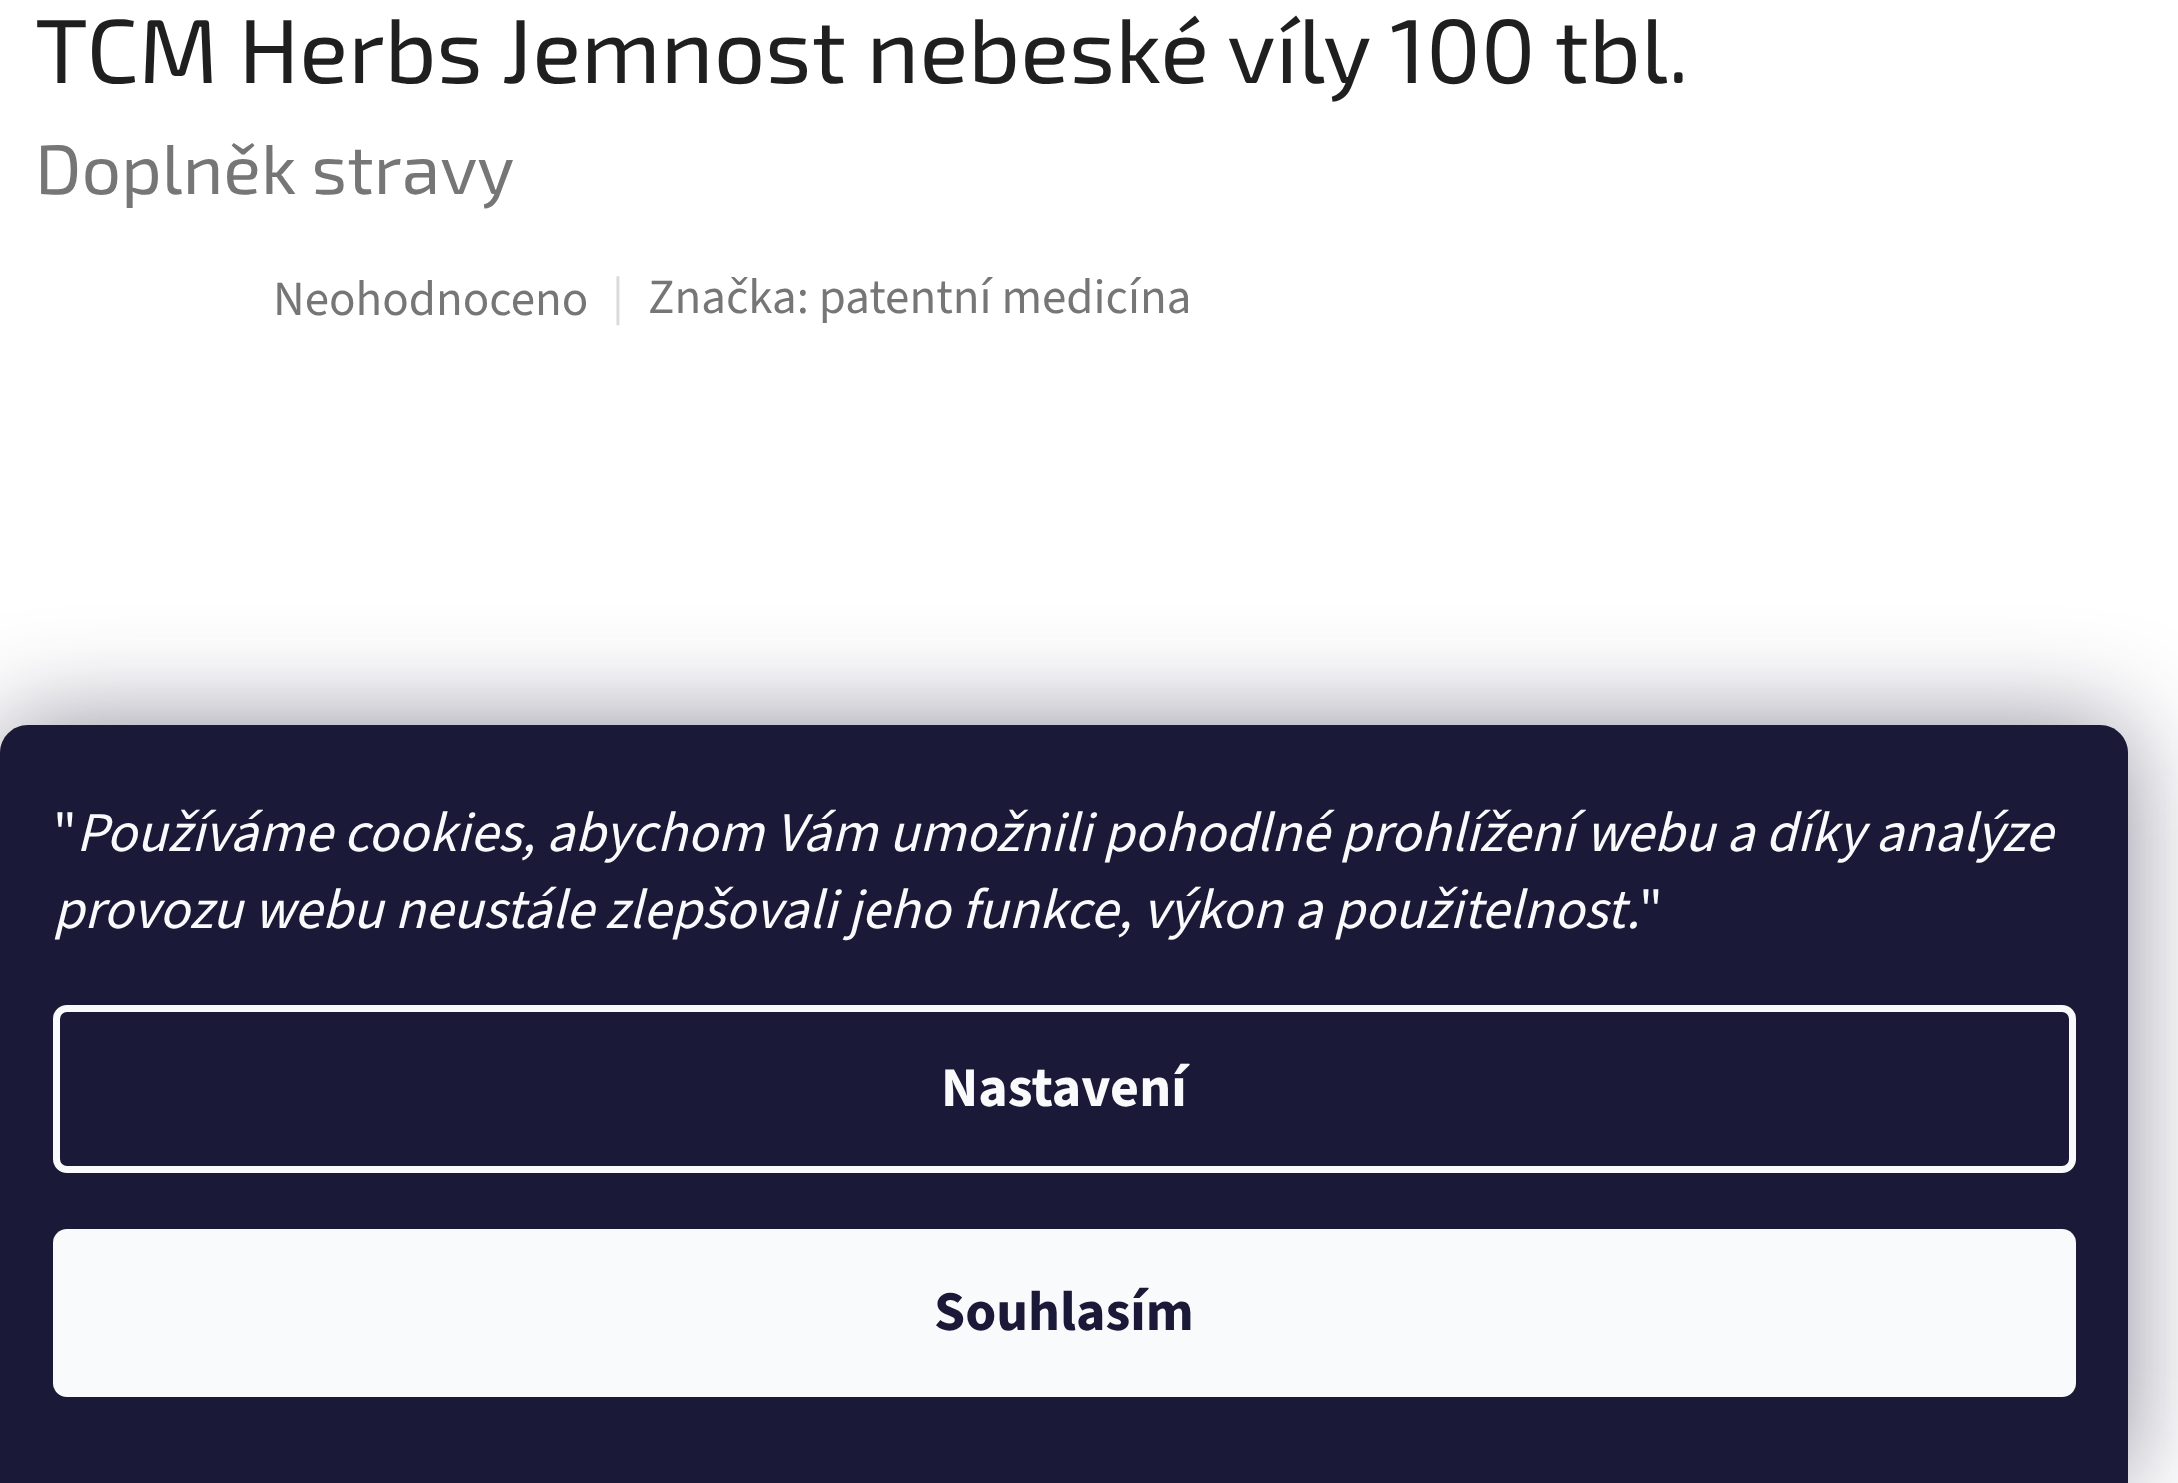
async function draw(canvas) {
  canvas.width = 2178
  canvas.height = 1483
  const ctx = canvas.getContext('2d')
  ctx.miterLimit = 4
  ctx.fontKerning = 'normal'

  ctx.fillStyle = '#fff'
  ctx.fillRect(0, 0, 2178, 1483)
  ctx.font = '91px "Exo 2"'
  ctx.fillStyle = '#1f1f1f'
  ctx.fillText('TCM Herbs Jemnost nebeské víly 100 tbl.', 35, 83)
  ctx.font = '70px "Exo 2"'
  ctx.fillStyle = '#767676'
  ctx.fillText('Doplněk stravy', 35, 194)
  ctx.font = '49px "Source Sans 3"'
  ctx.fillText('Neohodnoceno', 273, 315)
  ctx.fillStyle = '#dadada'
  ctx.fillText('|', 612, 313)
  ctx.fillStyle = '#767676'
  ctx.fillText('Značka: patentní medicína', 648, 313)
  ctx.fillStyle = '#1b193980'
  ctx.filter = 'blur(52.5px)'
  ctx.beginPath()
  ctx.roundRect(0, 725, 2128, 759, 28)
  ctx.fill()
  ctx.filter = 'none'
  ctx.fillStyle = '#1a1937'
  ctx.beginPath()
  ctx.moveTo(28, 725)
  ctx.lineTo(2100, 725)
  ctx.bezierCurveTo(2115.5, 725, 2128, 737.5, 2128, 753)
  ctx.lineTo(2128, 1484)
  ctx.lineTo(0, 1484)
  ctx.lineTo(0, 753)
  ctx.bezierCurveTo(0, 737.5, 12.5, 725, 28, 725)
  ctx.closePath()
  ctx.fill()
  ctx.font = '56px "Source Sans 3"'
  ctx.fillStyle = '#f8fafb'
  ctx.fillText('"', 53, 851)
  ctx.font = 'italic 56px "Source Sans 3"'
  ctx.fillText('Používáme cookies, abychom Vám umožnili pohodlné prohlížení webu a díky analýze', 76, 851)
  ctx.fillText('provozu webu neustále zlepšovali jeho funkce, výkon a použitelnost.', 53, 928)
  ctx.font = '56px "Source Sans 3"'
  ctx.fillText('"', 1639, 928)
  ctx.beginPath()
  ctx.roundRect(56.5, 1008.5, 2016, 161, 10.5)
  ctx.strokeStyle = '#f8fafb'
  ctx.lineWidth = 7
  ctx.stroke()
  ctx.font = 'bold 56px "Source Sans 3"'
  ctx.fillText('Nastavení', 941, 1106)
  ctx.beginPath()
  ctx.roundRect(53, 1229, 2023, 168, 14)
  ctx.fill()
  ctx.fillStyle = '#1a1937'
  ctx.fillText('Souhlasím', 934, 1330)
}

draw(document.querySelector('canvas'))
